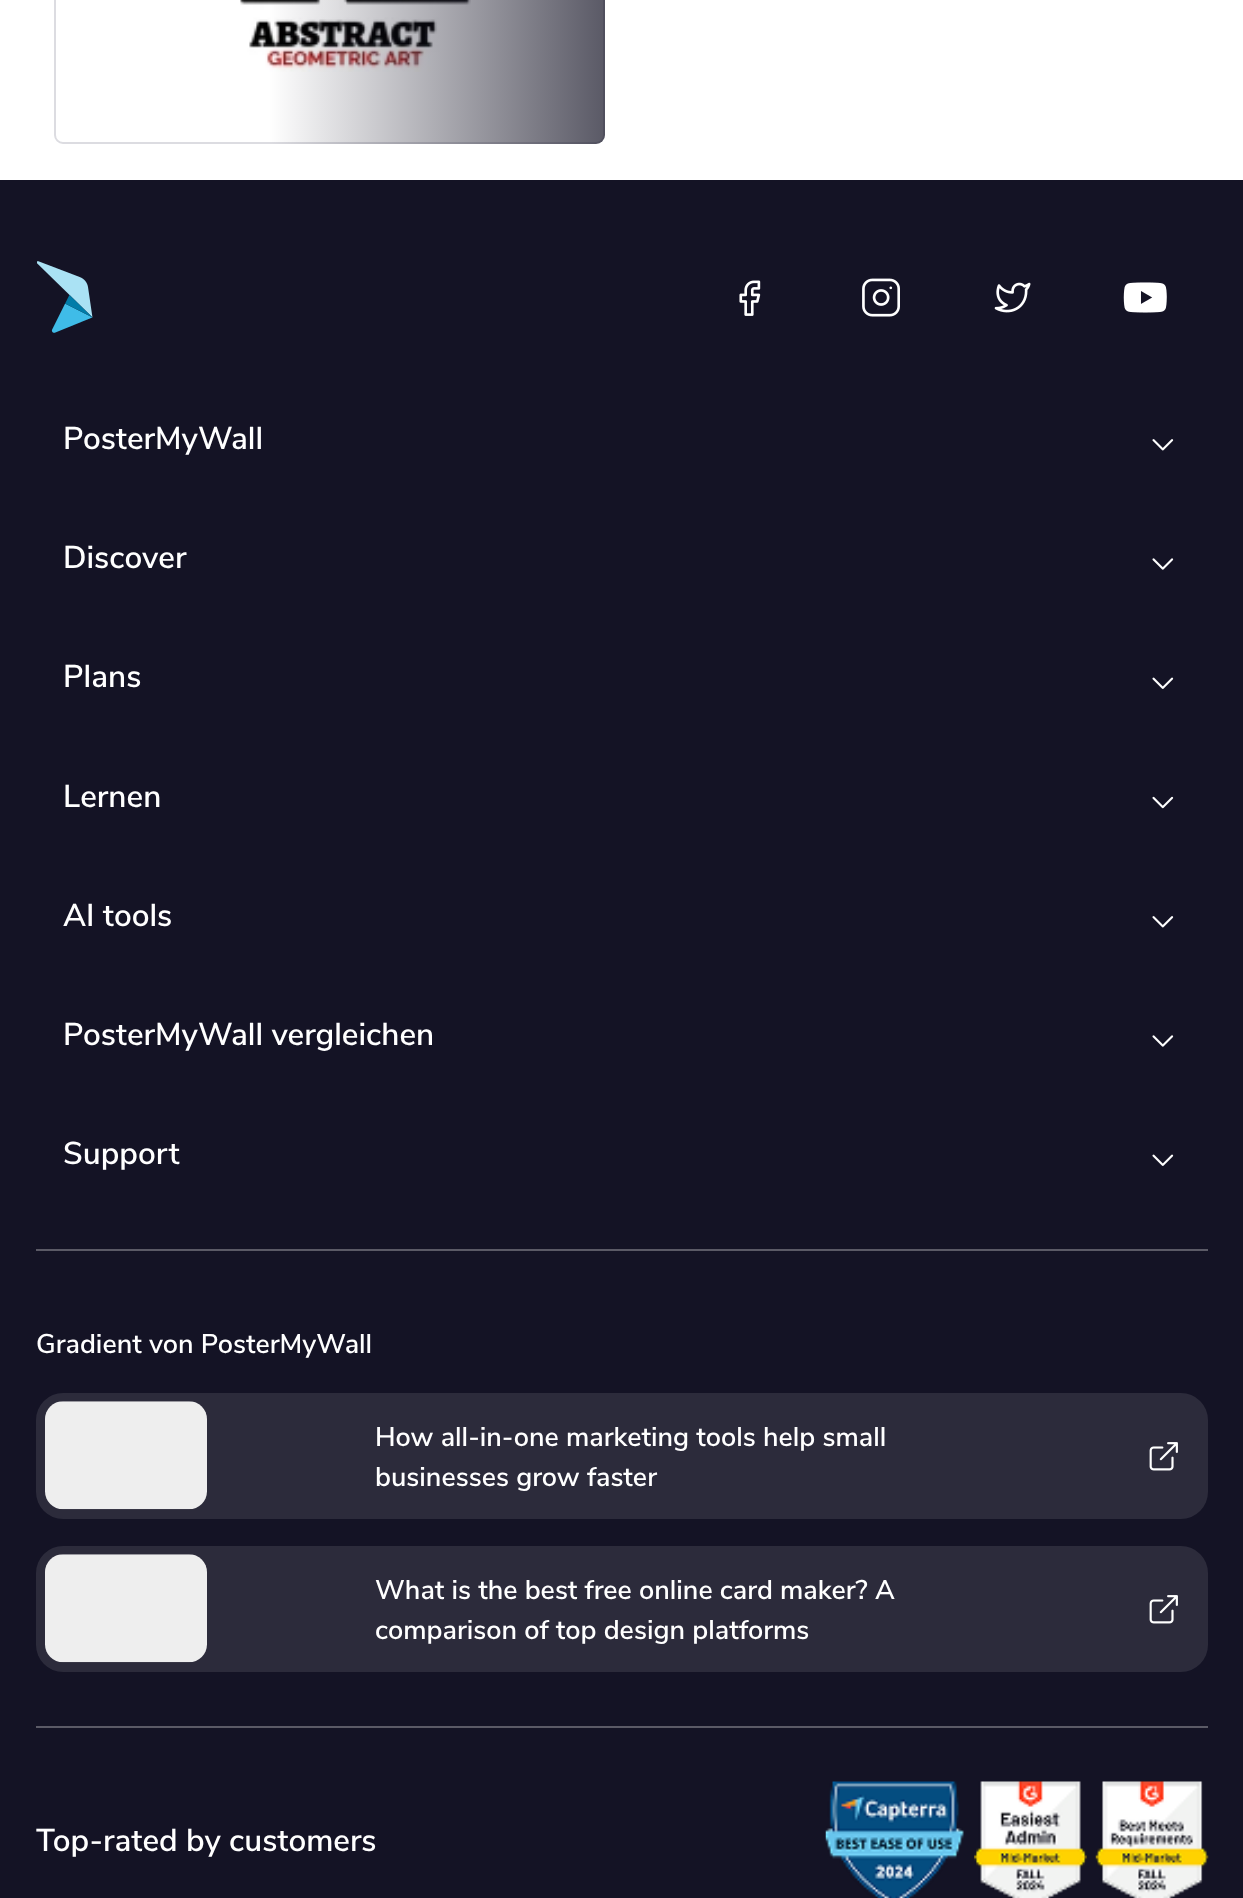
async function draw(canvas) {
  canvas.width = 1243
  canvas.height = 1898
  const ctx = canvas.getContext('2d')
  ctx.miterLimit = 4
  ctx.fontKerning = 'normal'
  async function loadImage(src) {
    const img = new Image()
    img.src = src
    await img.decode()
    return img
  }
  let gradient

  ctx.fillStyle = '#fff'
  ctx.fillRect(0, 0, 1243, 1898)
  ctx.beginPath()
  ctx.roundRect(55, -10, 549, 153, 8)
  ctx.strokeStyle = '#dcdce1'
  ctx.lineWidth = 2
  ctx.stroke()
  ctx.drawImage(await loadImage('image0.png'), 240, 0, 231, 72)
  gradient = ctx.createLinearGradient(54, -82, 605, -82)
  gradient.addColorStop(0.39, '#14132500')
  gradient.addColorStop(1, '#141325b3')
  ctx.fillStyle = gradient
  ctx.beginPath()
  ctx.roundRect(54, -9, 551, 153, 9)
  ctx.fill()
  ctx.fillStyle = '#141325'
  ctx.fillRect(0, 180, 1243, 1718)
  ctx.drawImage(await loadImage('image1.png'), 37, 261, 56, 72)
  ctx.drawImage(await loadImage('image2.png'), 739, 280, 22, 36)
  ctx.drawImage(await loadImage('image3.png'), 862, 278, 38, 39)
  ctx.drawImage(await loadImage('image4.png'), 994, 282, 37, 31)
  ctx.drawImage(await loadImage('image5.png'), 1123, 282, 44, 31)
  ctx.font = '600 31.5px Nunito Sans'
  ctx.fillStyle = '#fff'
  ctx.fillText('PosterMyWall', 63, 449)
  ctx.drawImage(await loadImage('image6.png'), 1152, 439, 22, 12)
  ctx.fillText('Discover', 63, 568)
  ctx.drawImage(await loadImage('image7.png'), 1152, 558, 22, 12)
  ctx.fillText('Plans', 63, 687)
  ctx.drawImage(await loadImage('image8.png'), 1152, 677, 22, 12)
  ctx.fillText('Lernen', 63, 807)
  ctx.drawImage(await loadImage('image9.png'), 1152, 796, 22, 13)
  ctx.fillText('AI tools', 63, 926)
  ctx.drawImage(await loadImage('image6.png'), 1152, 916, 22, 12)
  ctx.fillText('PosterMyWall vergleichen', 63, 1045)
  ctx.drawImage(await loadImage('image7.png'), 1152, 1035, 22, 12)
  ctx.fillText('Support', 63, 1164)
  ctx.drawImage(await loadImage('image8.png'), 1152, 1154, 22, 12)
  ctx.fillStyle = '#5b5a66'
  ctx.fillRect(36, 1249, 1172, 2)
  ctx.font = '600 27px Nunito Sans'
  ctx.fillStyle = '#fff'
  ctx.fillText('Gradient von PosterMyWall', 36, 1353)
  ctx.fillStyle = '#2c2b3b'
  ctx.beginPath()
  ctx.roundRect(36, 1393, 1172, 126, 27)
  ctx.fill()
  ctx.drawImage(await loadImage('image10.png'), 45, 1401, 162, 109)
  ctx.fillStyle = '#fff'
  ctx.fillText('How all-in-one marketing tools help small', 375, 1446)
  ctx.fillText('businesses grow faster', 375, 1486)
  ctx.drawImage(await loadImage('image11.png'), 1149, 1442, 29, 29)
  ctx.fillStyle = '#2c2b3b'
  ctx.beginPath()
  ctx.roundRect(36, 1546, 1172, 126, 27)
  ctx.fill()
  ctx.drawImage(await loadImage('image10.png'), 45, 1554, 162, 109)
  ctx.fillStyle = '#fff'
  ctx.fillText('What is the best free online card maker? A', 375, 1599)
  ctx.fillText('comparison of top design platforms', 375, 1639)
  ctx.drawImage(await loadImage('image11.png'), 1149, 1595, 29, 29)
  ctx.fillStyle = '#5b5a66'
  ctx.fillRect(36, 1726, 1172, 2)
  ctx.font = '600 31.5px Nunito Sans'
  ctx.fillStyle = '#fff'
  ctx.fillText('Top-rated by customers', 36, 1851)
  ctx.drawImage(await loadImage('image12.png'), 825, 1781, 139, 117)
  ctx.drawImage(await loadImage('image13.png'), 974, 1781, 113, 117)
  ctx.drawImage(await loadImage('image14.png'), 1095, 1781, 114, 117)
}

draw(document.querySelector('canvas'))
